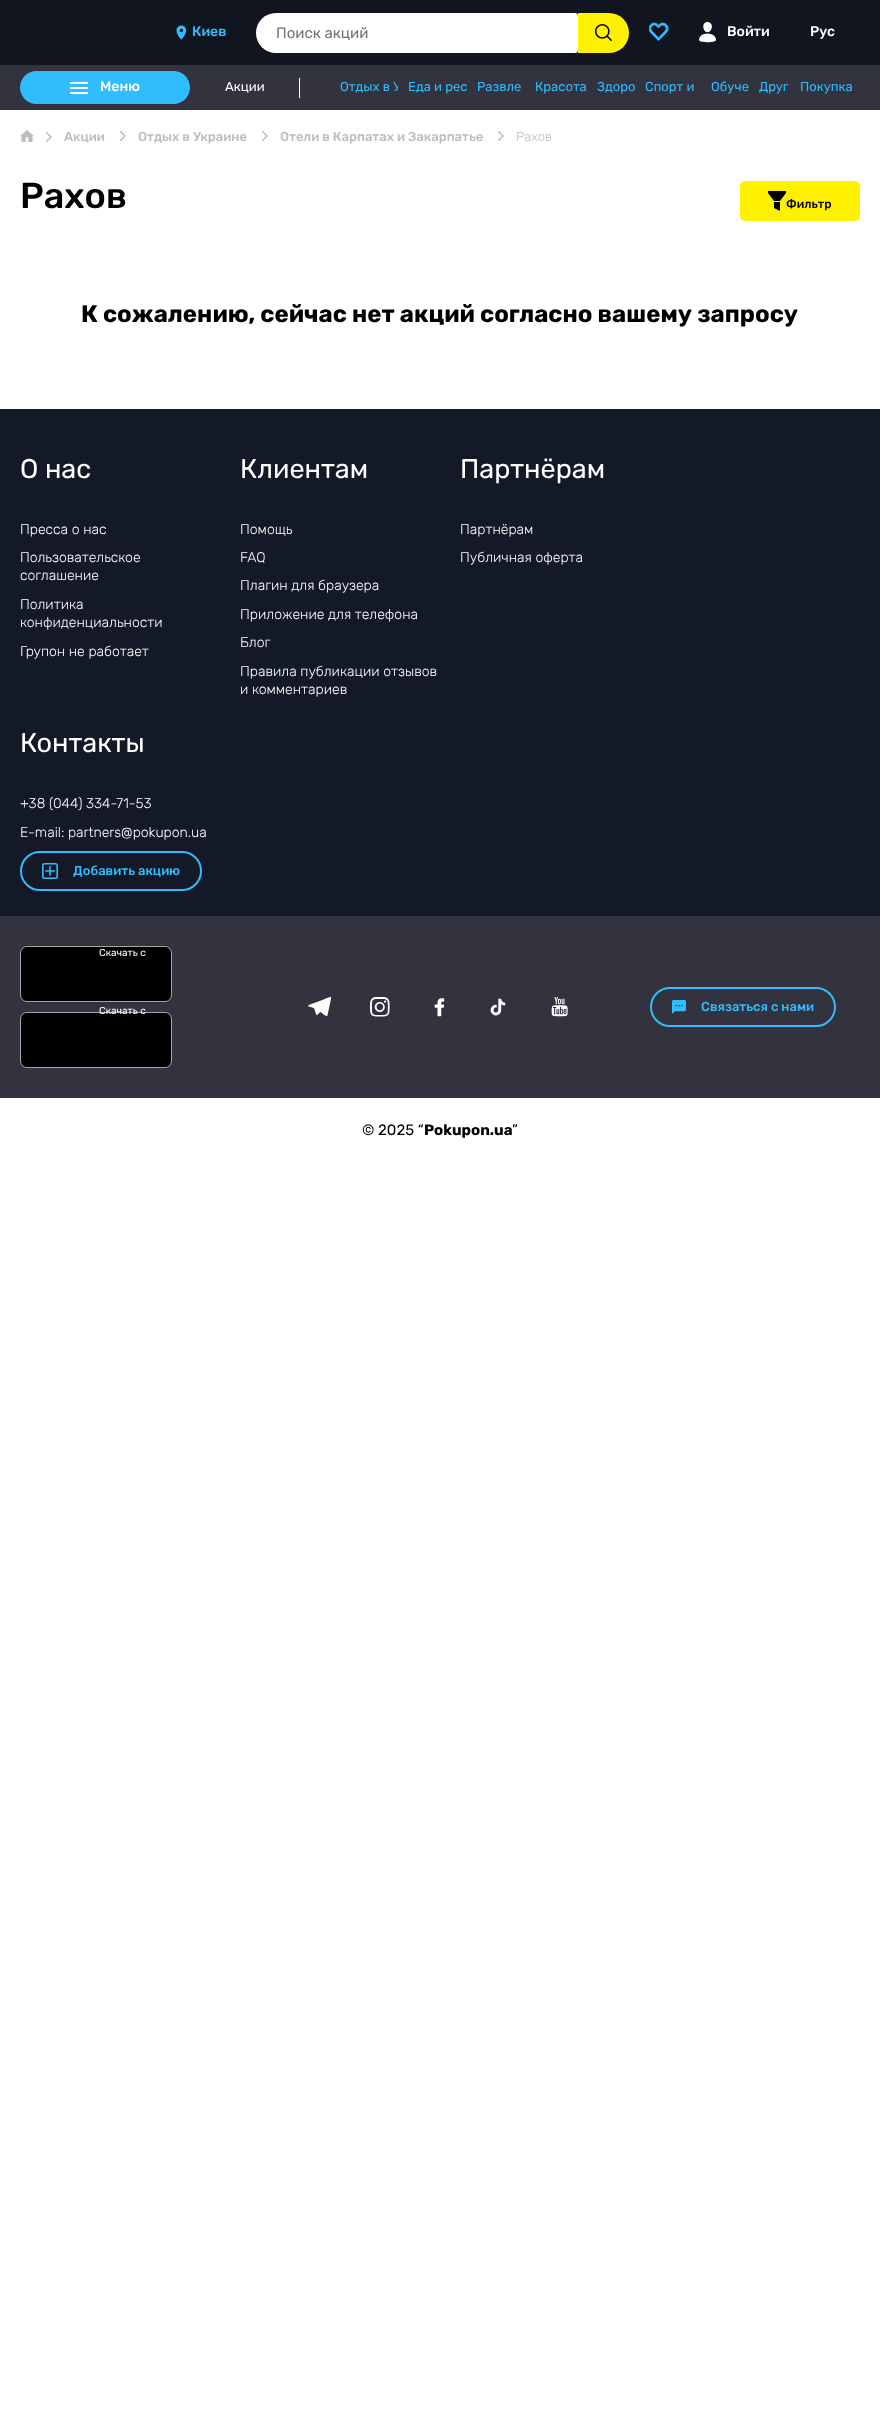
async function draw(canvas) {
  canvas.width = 880
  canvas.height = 2419
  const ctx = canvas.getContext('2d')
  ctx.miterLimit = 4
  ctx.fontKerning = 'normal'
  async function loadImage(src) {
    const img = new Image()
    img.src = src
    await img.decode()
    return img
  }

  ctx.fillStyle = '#fff'
  ctx.fillRect(0, 0, 880, 2419)
  ctx.fillStyle = '#101520'
  ctx.fillRect(0, 0, 880, 65)
  ctx.drawImage(await loadImage('image0.png'), 176, 25, 11, 15)
  ctx.font = '500 14px Rubik'
  ctx.fillStyle = '#31bcfe'
  ctx.fillText('Киев', 192, 36)
  ctx.fillStyle = '#fff'
  ctx.beginPath()
  ctx.roundRect(256, 13, 322, 40, [20, 3, 3, 20])
  ctx.fill()
  ctx.font = '15px Rubik'
  ctx.fillStyle = '#6c757d'
  ctx.fillText('Поиск акций', 276, 38)
  ctx.fillStyle = '#fff000'
  ctx.beginPath()
  ctx.roundRect(578, 13, 51, 40, [0, 20, 20, 0])
  ctx.fill()
  ctx.drawImage(await loadImage('image1.png'), 595, 24, 17, 17)
  ctx.drawImage(await loadImage('image2.png'), 649, 22, 20, 19)
  ctx.drawImage(await loadImage('image3.png'), 699, 22, 18, 21)
  ctx.font = '500 14px Rubik'
  ctx.fillStyle = '#fff'
  ctx.fillText('Войти', 727, 36)
  ctx.fillText('Рус', 810, 36)
  ctx.fillStyle = '#333340'
  ctx.fillRect(0, 65, 880, 45)
  ctx.fillStyle = '#31bcfe'
  ctx.beginPath()
  ctx.roundRect(20, 71, 170, 33, 16.5)
  ctx.fill()
  ctx.fillStyle = '#fff'
  ctx.fillRect(70, 87, 18, 2)
  ctx.fillRect(70, 82, 18, 2)
  ctx.fillRect(70, 92, 18, 2)
  ctx.fillText('Меню', 100, 91)
  ctx.font = '13px Rubik'
  ctx.fillText('Акции', 225, 91)
  ctx.fillRect(299, 78, 1, 20)
  ctx.save()
  ctx.beginPath()
  ctx.rect(340, 65, 58, 45)
  ctx.clip()
  ctx.fillStyle = '#31bcfe'
  ctx.fillText('Отдых в У', 340, 91)
  ctx.restore()
  ctx.fillStyle = '#31bcfe'
  ctx.fillText('Еда и рес', 408, 91)
  ctx.fillText('Развле', 477, 91)
  ctx.fillText('Красота', 535, 91)
  ctx.save()
  ctx.beginPath()
  ctx.rect(587, 65, 48, 45)
  ctx.clip()
  ctx.fillText('Здоро', 597, 91)
  ctx.restore()
  ctx.fillText('Спорт и', 645, 91)
  ctx.fillText('Обуче', 711, 91)
  ctx.fillText('Друг', 759, 91)
  ctx.fillText('Покупка', 800, 91)
  ctx.drawImage(await loadImage('image4.png'), 20, 130, 14, 12)
  ctx.drawImage(await loadImage('image5.png'), 46, 132, 6, 10)
  ctx.font = '500 13px Rubik'
  ctx.fillStyle = '#bdbdbd'
  ctx.fillText('Акции', 64, 141)
  ctx.drawImage(await loadImage('image5.png'), 120, 131, 6, 10)
  ctx.fillText('Отдых в Украине', 138, 141)
  ctx.drawImage(await loadImage('image5.png'), 262, 131, 6, 10)
  ctx.fillText('Отели в Карпатах и Закарпатье', 280, 141)
  ctx.drawImage(await loadImage('image5.png'), 498, 131, 6, 10)
  ctx.font = '300 13px Rubik'
  ctx.fillText('Рахов', 516, 141)
  ctx.font = '500 36px Rubik'
  ctx.fillStyle = '#000'
  ctx.fillText('Рахов', 20, 208)
  ctx.fillStyle = '#fff000'
  ctx.beginPath()
  ctx.roundRect(740, 181, 120, 40, 5)
  ctx.fill()
  ctx.drawImage(await loadImage('image6.png'), 768, 191, 18, 20)
  ctx.font = '500 12px Rubik'
  ctx.fillStyle = '#000'
  ctx.fillText('Фильтр', 786, 208)
  ctx.font = 'bold 24px Rubik'
  ctx.fillText('К сожалению, сейчас нет акций согласно вашему запросу', 81, 322)
  ctx.fillStyle = '#131926'
  ctx.fillRect(0, 409, 880, 507)
  ctx.font = '27px Rubik'
  ctx.fillStyle = '#fff'
  ctx.fillText('О нас', 20, 478)
  ctx.font = '300 14px Rubik'
  ctx.fillText('Пресса о нас', 20, 534)
  ctx.fillText('Пользовательское', 20, 562)
  ctx.fillText('соглашение', 20, 580)
  ctx.fillText('Политика', 20, 609)
  ctx.fillText('конфиденциальности', 20, 627)
  ctx.fillText('Групон не работает', 20, 656)
  ctx.font = '27px Rubik'
  ctx.fillText('Клиентам', 240, 478)
  ctx.font = '300 14px Rubik'
  ctx.fillText('Помощь', 240, 534)
  ctx.fillText('FAQ', 240, 562)
  ctx.fillText('Плагин для браузера', 240, 590)
  ctx.fillText('Приложение для телефона', 240, 619)
  ctx.fillText('Блог', 240, 647)
  ctx.fillText('Правила публикации отзывов', 240, 676)
  ctx.fillText('и комментариев', 240, 694)
  ctx.font = '27px Rubik'
  ctx.fillText('Партнёрам', 460, 478)
  ctx.font = '300 14px Rubik'
  ctx.fillText('Партнёрам', 460, 534)
  ctx.fillText('Публичная оферта', 460, 562)
  ctx.font = '27px Rubik'
  ctx.fillText('Контакты', 20, 752)
  ctx.font = '300 14px Rubik'
  ctx.fillText('+38 (044) 334-71-53', 20, 808)
  ctx.fillText('E-mail: partners@pokupon.ua', 20, 837)
  ctx.beginPath()
  ctx.roundRect(21, 852, 180, 38, 19)
  ctx.strokeStyle = '#31bcfe'
  ctx.lineWidth = 2
  ctx.stroke()
  ctx.drawImage(await loadImage('image7.png'), 42, 863, 16, 16)
  ctx.font = '500 13px Rubik'
  ctx.fillStyle = '#31bcfe'
  ctx.fillText('Добавить акцию', 73, 875)
  ctx.fillStyle = '#333340'
  ctx.fillRect(0, 916, 880, 182)
  ctx.fillStyle = '#000'
  ctx.beginPath()
  ctx.roundRect(20.5, 946.5, 151, 55, 6.5)
  ctx.fill()
  ctx.strokeStyle = '#a6a6a6'
  ctx.lineWidth = 1
  ctx.stroke()
  ctx.font = '10px Rubik'
  ctx.fillStyle = '#fff'
  ctx.fillText('Скачать с', 99, 956)
  ctx.fillStyle = '#000'
  ctx.beginPath()
  ctx.roundRect(20.5, 1012.5, 151, 55, 6.5)
  ctx.fill()
  ctx.stroke()
  ctx.fillStyle = '#fff'
  ctx.fillText('Скачать с', 99, 1014)
  ctx.drawImage(await loadImage('image8.png'), 308, 997, 24, 20)
  ctx.drawImage(await loadImage('image9.png'), 370, 997, 20, 20)
  ctx.drawImage(await loadImage('image10.png'), 434, 998, 11, 19)
  ctx.drawImage(await loadImage('image11.png'), 490, 998, 16, 18)
  ctx.drawImage(await loadImage('image12.png'), 551, 997, 17, 20)
  ctx.beginPath()
  ctx.roundRect(651, 988, 184, 38, 19)
  ctx.strokeStyle = '#31bcfe'
  ctx.lineWidth = 2
  ctx.stroke()
  ctx.drawImage(await loadImage('image13.png'), 672, 1000, 14, 14)
  ctx.font = '500 13px Rubik'
  ctx.fillStyle = '#31bcfe'
  ctx.fillText('Связаться с нами', 701, 1011)
  ctx.font = '15px Rubik'
  ctx.fillStyle = '#000'
  ctx.fillText('© 2025 “', 362, 1135)
  ctx.font = 'bold 15px Rubik'
  ctx.fillText('Pokupon.ua', 424, 1135)
  ctx.font = '15px Rubik'
  ctx.fillText('”', 512, 1135)
}

draw(document.querySelector('canvas'))
